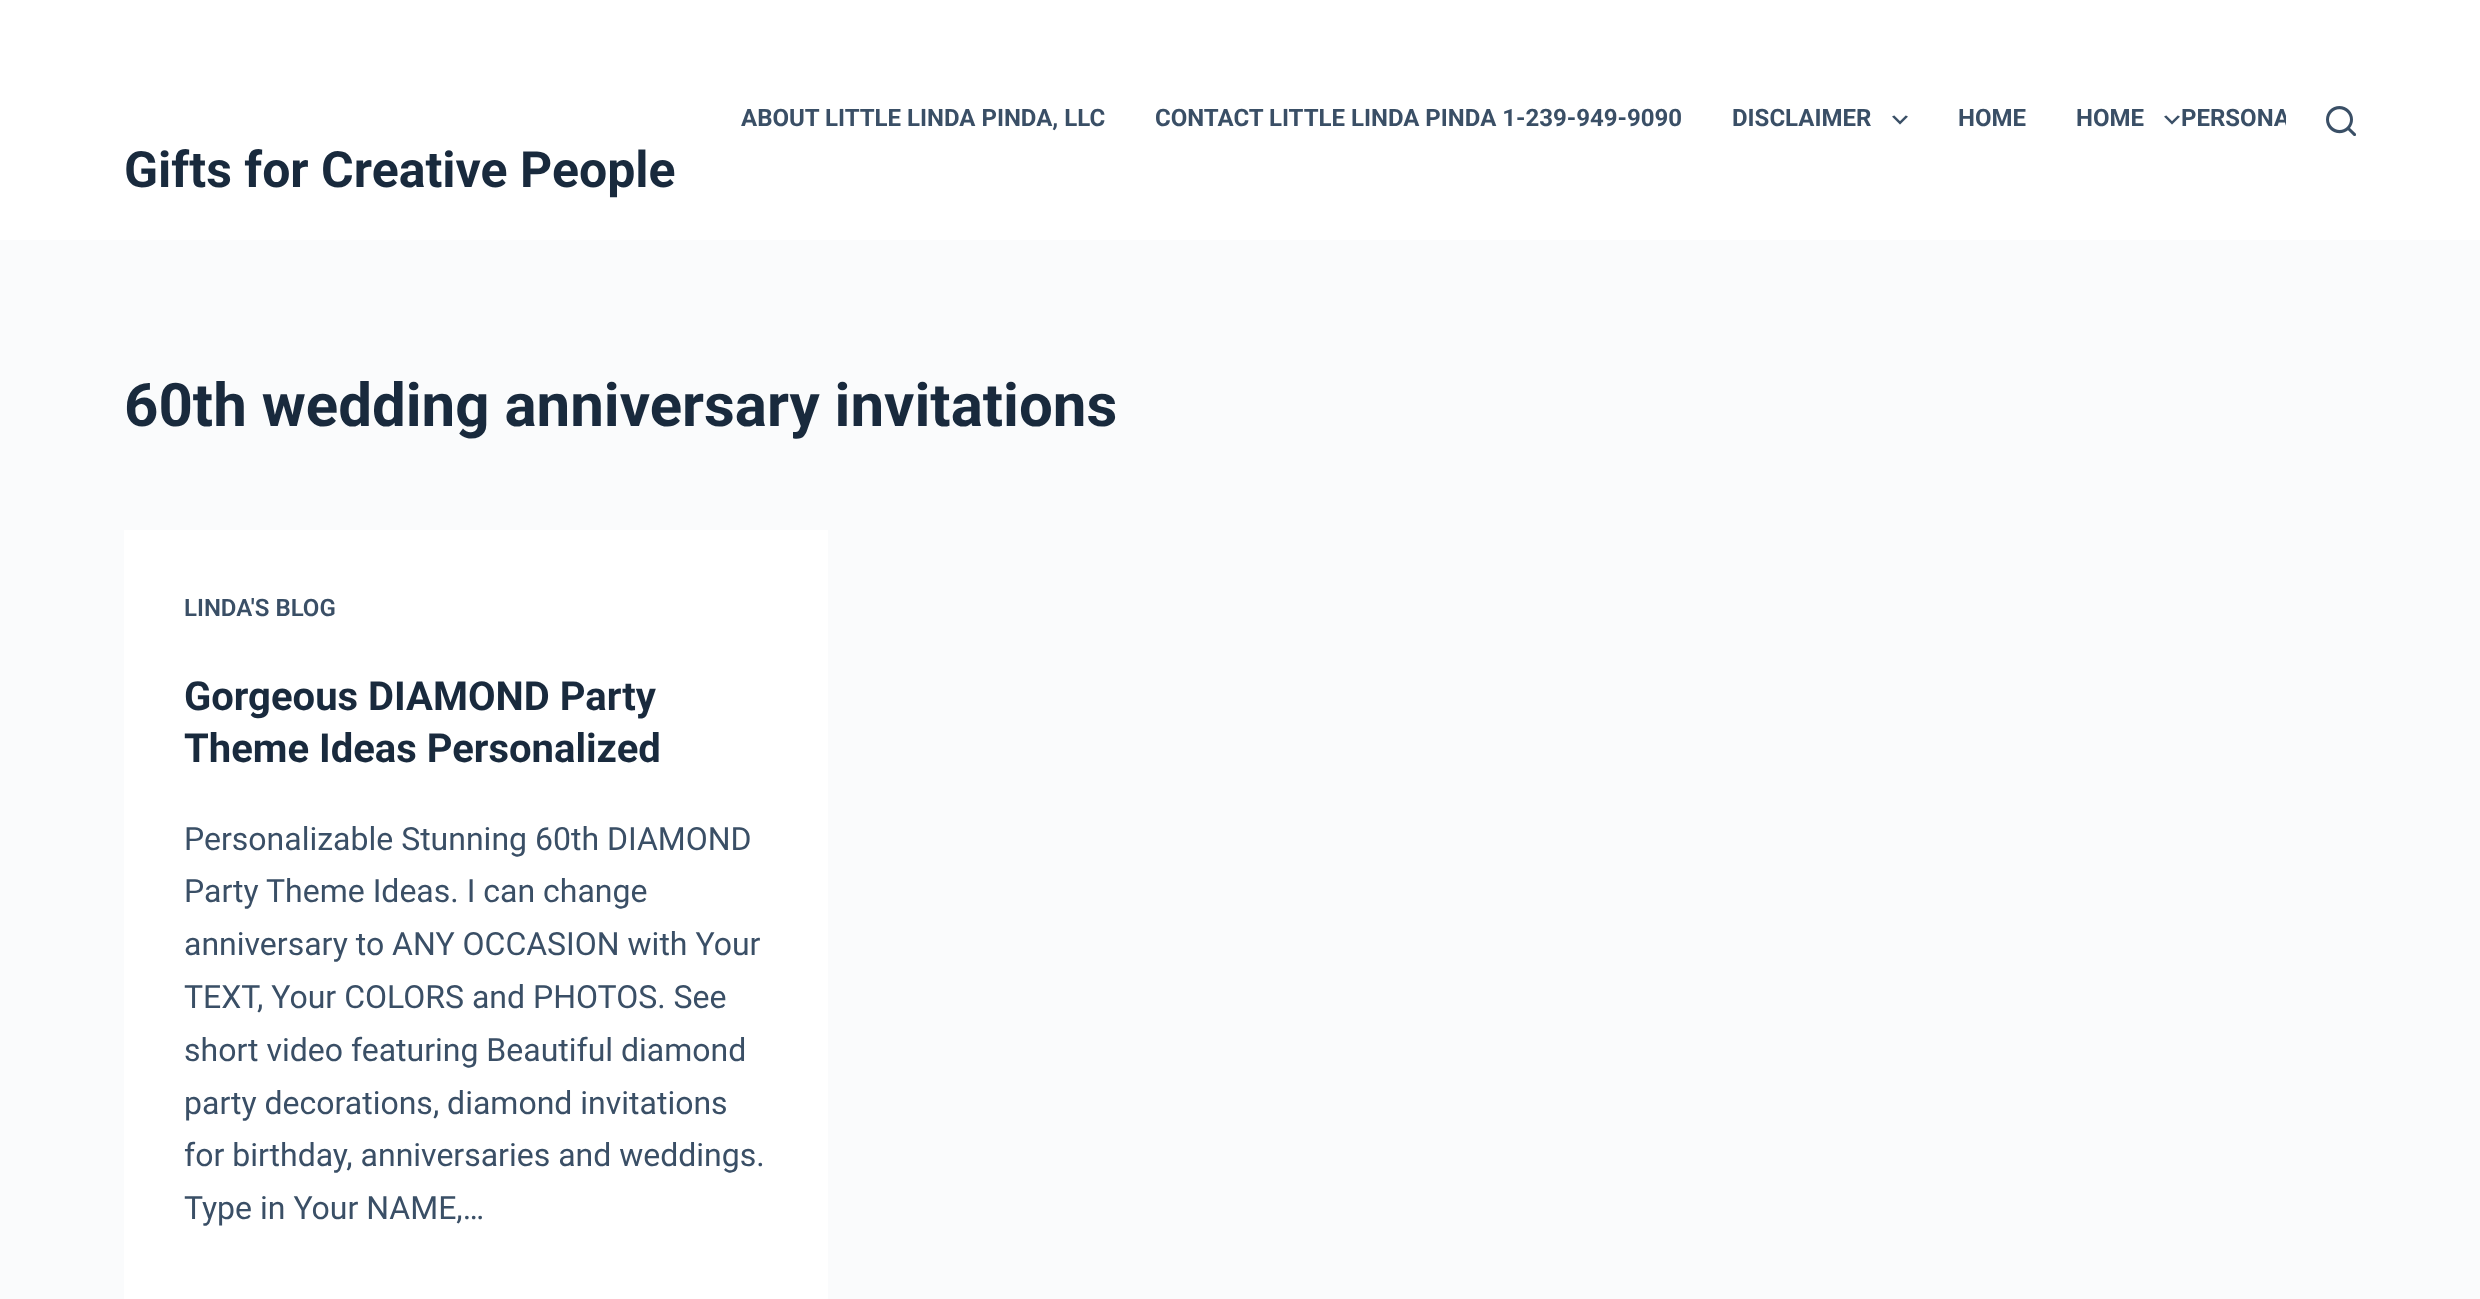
async function draw(canvas) {
  canvas.width = 2480
  canvas.height = 1299
  const ctx = canvas.getContext('2d')
  ctx.miterLimit = 4
  ctx.fontKerning = 'normal'
  async function loadImage(src) {
    const img = new Image()
    img.src = src
    await img.decode()
    return img
  }

  ctx.fillStyle = '#fafbfc'
  ctx.fillRect(0, 0, 2480, 1299)
  ctx.fillStyle = '#fff'
  ctx.fillRect(0, 0, 2480, 240)
  ctx.font = 'bold 24px Roboto'
  ctx.fillStyle = '#3a4f66'
  ctx.fillText('ABOUT LITTLE LINDA PINDA, LLC', 741, 126)
  ctx.fillText('CONTACT LITTLE LINDA PINDA 1-239-949-9090', 1155, 126)
  ctx.fillText('DISCLAIMER', 1732, 126)
  ctx.drawImage(await loadImage('image0.png'), 1892, 115, 16, 10)
  ctx.fillText('HOME', 1958, 126)
  ctx.fillText('HOME', 2076, 126)
  ctx.drawImage(await loadImage('image0.png'), 2164, 115, 16, 10)
  ctx.save()
  ctx.beginPath()
  ctx.rect(716, 0, 1570, 240)
  ctx.clip()
  ctx.fillText('PERSONA', 2181, 126)
  ctx.restore()
  ctx.drawImage(await loadImage('image1.png'), 2326, 106, 30, 30)
  ctx.font = 'bold 50px Roboto'
  ctx.fillStyle = '#192a3d'
  ctx.fillText('Gifts for Creative People', 124, 187)
  ctx.font = 'bold 60px Roboto'
  ctx.fillText('60th wedding anniversary invitations', 124, 426)
  ctx.fillStyle = '#fff'
  ctx.fillRect(124, 530, 704, 769)
  ctx.font = '600 24px Roboto'
  ctx.fillStyle = '#3a4f66'
  ctx.fillText('LINDA\'S BLOG', 184, 616)
  ctx.font = 'bold 40px Roboto'
  ctx.fillStyle = '#192a3d'
  ctx.fillText('Gorgeous DIAMOND Party', 184, 710)
  ctx.fillText('Theme Ideas Personalized', 184, 762)
  ctx.font = '32px Roboto'
  ctx.fillStyle = '#3a4f66'
  ctx.fillText('Personalizable Stunning 60th DIAMOND', 184, 850)
  ctx.fillText('Party Theme Ideas. I can change', 184, 902)
  ctx.fillText('anniversary to ANY OCCASION with Your', 184, 955)
  ctx.fillText('TEXT, Your COLORS and PHOTOS. See', 184, 1008)
  ctx.fillText('short video featuring Beautiful diamond', 184, 1061)
  ctx.fillText('party decorations, diamond invitations', 184, 1114)
  ctx.fillText('for birthday, anniversaries and weddings.', 184, 1166)
  ctx.fillText('Type in Your NAME,…', 184, 1219)
}

draw(document.querySelector('canvas'))
